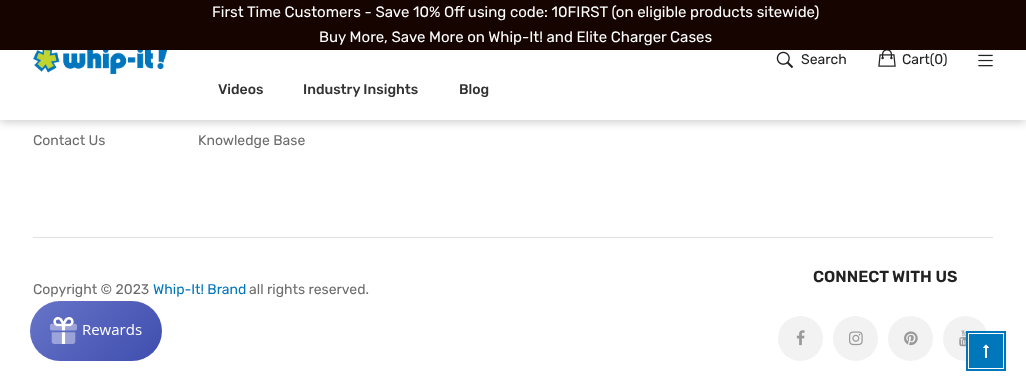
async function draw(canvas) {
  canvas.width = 1026
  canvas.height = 391
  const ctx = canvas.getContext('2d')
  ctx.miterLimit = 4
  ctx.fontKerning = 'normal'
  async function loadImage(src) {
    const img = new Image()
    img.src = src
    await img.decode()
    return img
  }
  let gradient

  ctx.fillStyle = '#fff'
  ctx.fillRect(0, 0, 1026, 391)
  ctx.fillStyle = '#ccc'
  ctx.filter = 'blur(5px)'
  ctx.beginPath()
  ctx.rect(0, 2, 1026, 120)
  ctx.fill()
  ctx.filter = 'none'
  ctx.fillStyle = '#150400'
  ctx.fillRect(0, 0, 1026, 50)
  ctx.font = '15px Rubik'
  ctx.fillStyle = '#fff'
  ctx.fillText('First Time Customers - Save 10% Off using code: 10FIRST (on eligible products sitewide)', 212, 17)
  ctx.fillText('Buy More, Save More on Whip-It! and Elite Charger Cases', 319, 42)
  ctx.fillRect(0, 50, 1026, 70)
  ctx.drawImage(await loadImage('image0.png'), 33, 50, 134, 24)
  ctx.drawImage(await loadImage('image1.png'), 776, 51, 18, 18)
  ctx.font = '14px Rubik'
  ctx.fillStyle = '#222'
  ctx.fillText('Search', 801, 64)
  ctx.drawImage(await loadImage('image2.png'), 878, 50, 18, 17)
  ctx.fillText('Cart(0)', 902, 64)
  ctx.drawImage(await loadImage('image3.png'), 978, 54, 15, 13)
  ctx.font = '500 14px Rubik'
  ctx.fillStyle = '#333'
  ctx.fillText('Videos', 218, 94)
  ctx.fillText('Industry Insights', 303, 94)
  ctx.fillText('Blog', 459, 94)
  ctx.font = '14px Rubik'
  ctx.fillStyle = '#6c6c6c'
  ctx.fillText('Contact Us', 33, 145)
  ctx.fillText('Knowledge Base', 198, 145)
  ctx.fillStyle = '#e1e1e1'
  ctx.fillRect(33, 237, 960, 1)
  ctx.font = '600 16px Rubik'
  ctx.fillStyle = '#222'
  ctx.fillText('CONNECT WITH US', 813, 282)
  ctx.fillStyle = '#f2f2f2'
  ctx.beginPath()
  ctx.arc(800.5, 338.5, 22.5, 0, 2 * Math.PI)
  ctx.fill()
  ctx.drawImage(await loadImage('image4.png'), 796, 330, 9, 16)
  ctx.beginPath()
  ctx.arc(855.5, 338.5, 22.5, 0, 2 * Math.PI)
  ctx.fill()
  ctx.drawImage(await loadImage('image5.png'), 849, 331, 14, 15)
  ctx.beginPath()
  ctx.arc(910.5, 338.5, 22.5, 0, 2 * Math.PI)
  ctx.fill()
  ctx.drawImage(await loadImage('image6.png'), 904, 331, 14, 15)
  ctx.beginPath()
  ctx.arc(965.5, 338.5, 22.5, 0, 2 * Math.PI)
  ctx.fill()
  ctx.drawImage(await loadImage('image7.png'), 959, 330, 7, 17)
  ctx.font = '14px Rubik'
  ctx.fillStyle = '#6c6c6c'
  ctx.fillText('Copyright © 2023', 33, 294)
  ctx.fillStyle = '#0076bb'
  ctx.fillText('Whip-It! Brand', 153, 294)
  ctx.fillStyle = '#6c6c6c'
  ctx.fillText('all rights reserved.', 249, 294)
  gradient = ctx.createLinearGradient(48, 283, 144, 379)
  gradient.addColorStop(0, '#6774c8')
  gradient.addColorStop(1, '#3f4eae')
  ctx.fillStyle = gradient
  ctx.beginPath()
  ctx.roundRect(30, 301, 132, 60, 30)
  ctx.fill()
  ctx.drawImage(await loadImage('image8.png'), 50, 317, 92, 27)
  ctx.fillStyle = '#0076bb'
  ctx.fillRect(966, 331, 40, 40)
  ctx.strokeStyle = '#fff'
  ctx.strokeRect(968.5, 333.5, 35, 35)
  ctx.drawImage(await loadImage('image9.png'), 983, 344, 6, 14)
}

draw(document.querySelector('canvas'))
